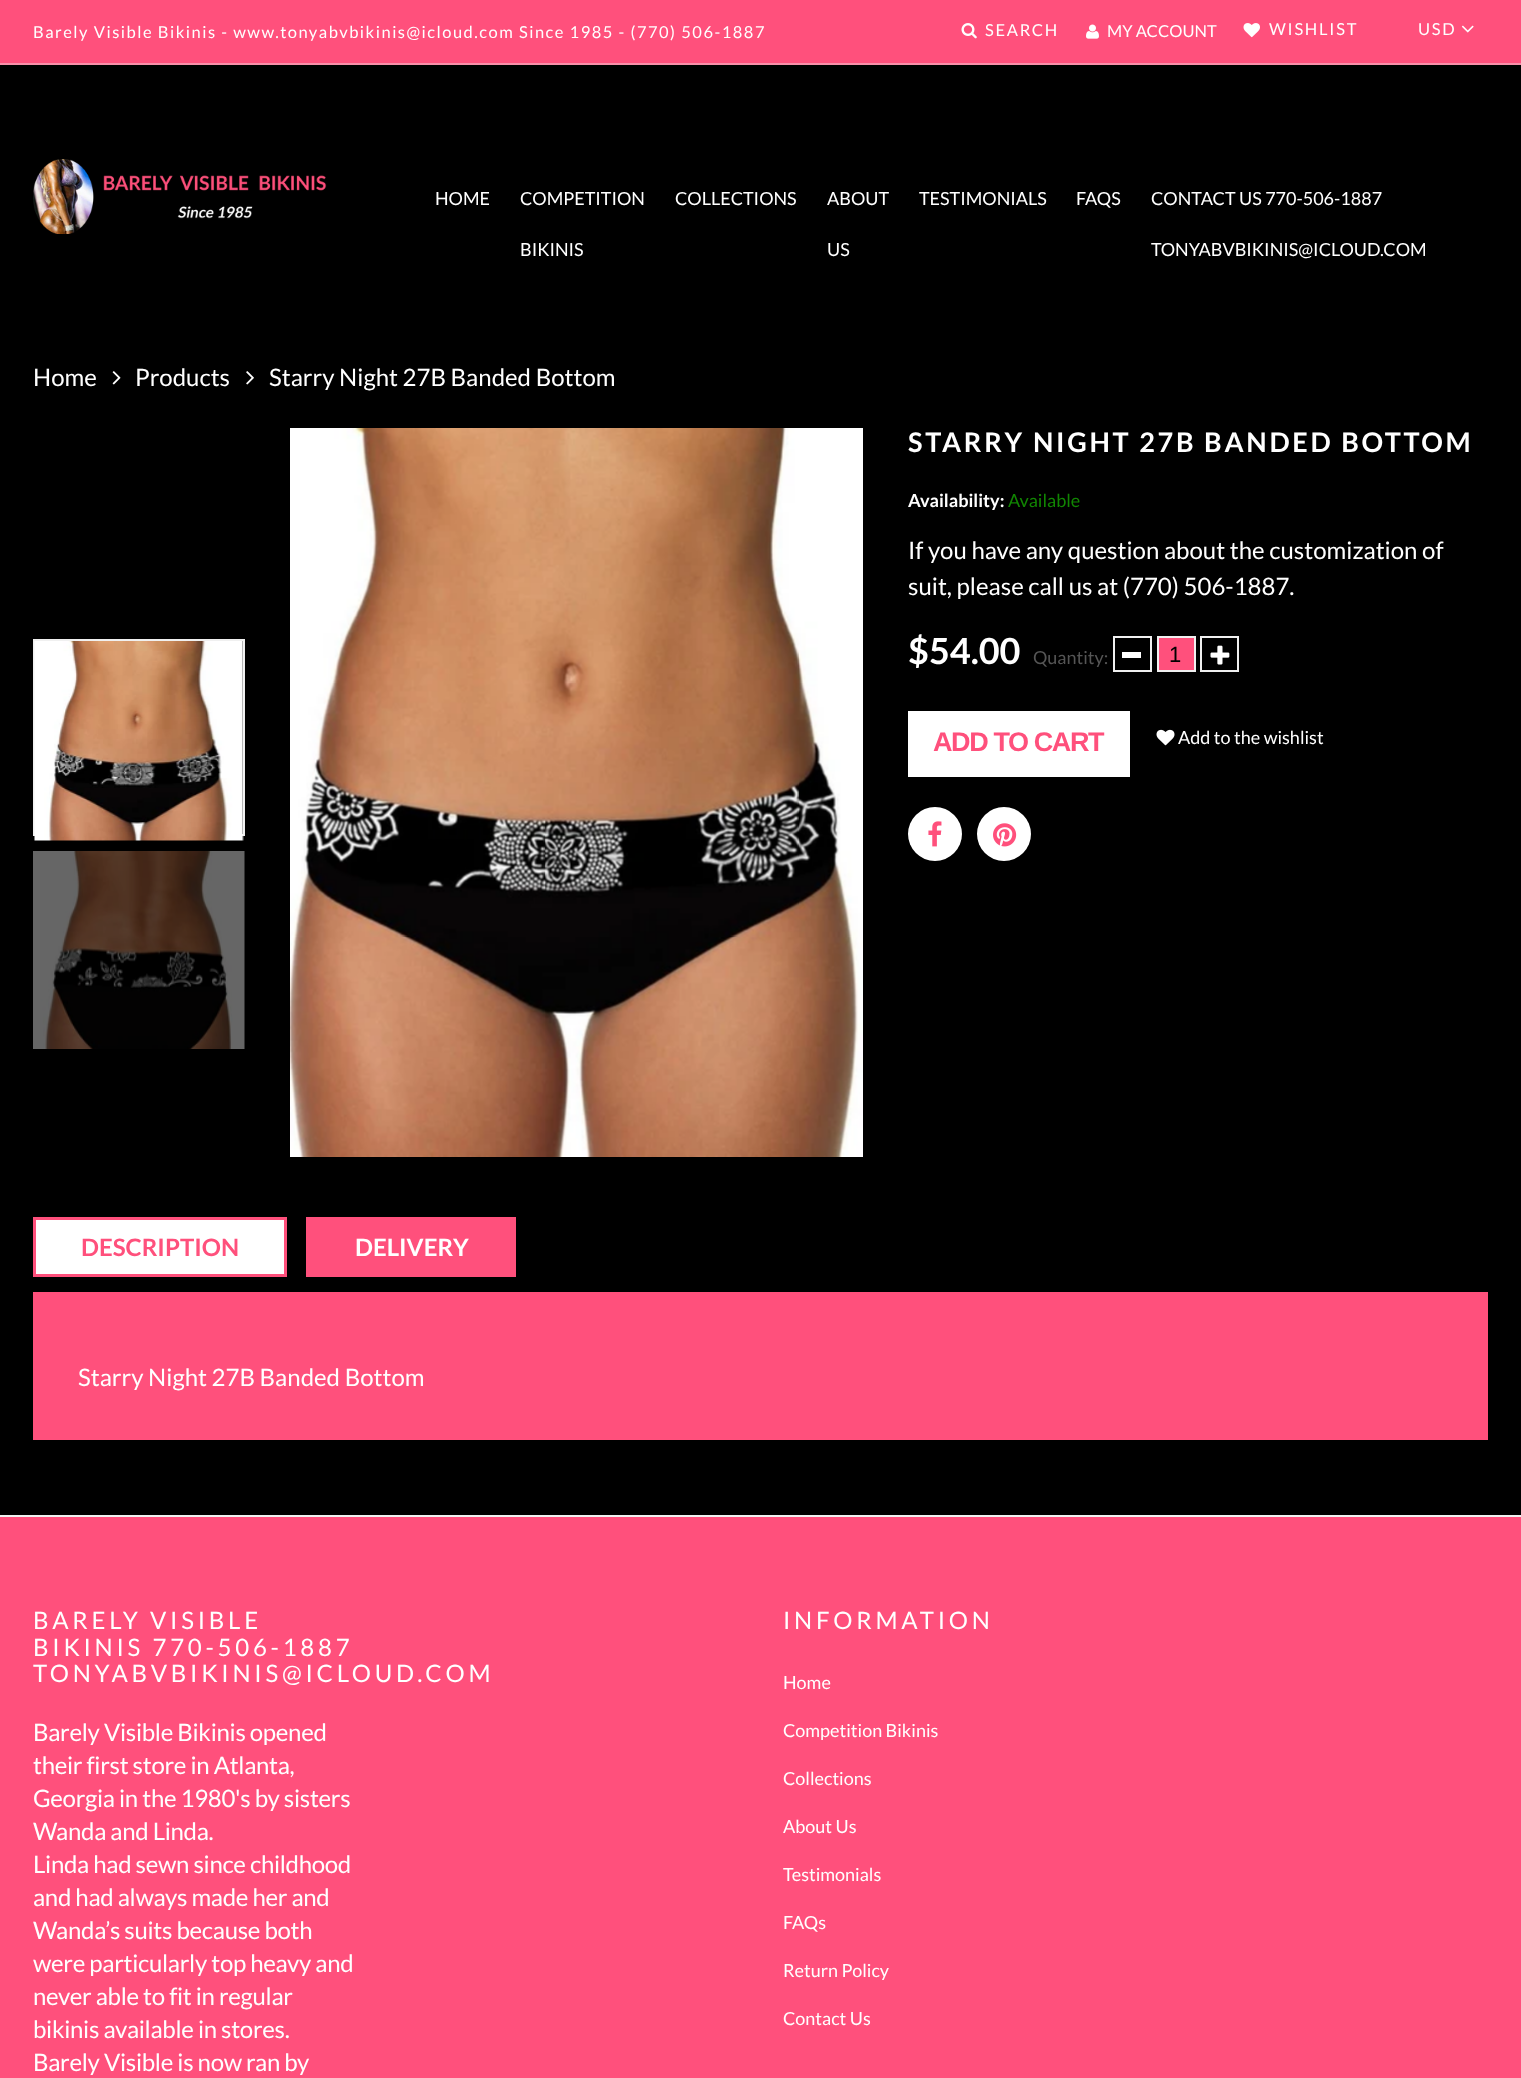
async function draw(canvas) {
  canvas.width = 1521
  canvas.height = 2078
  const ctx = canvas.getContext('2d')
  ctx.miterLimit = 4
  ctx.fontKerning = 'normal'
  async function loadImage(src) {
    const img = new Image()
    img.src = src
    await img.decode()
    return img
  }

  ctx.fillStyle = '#000'
  ctx.fillRect(0, 0, 1521, 2078)
  ctx.fillStyle = '#ff507c'
  ctx.fillRect(0, 0, 1521, 63)
  ctx.fillStyle = '#f990aa'
  ctx.fillRect(0, 63, 1521, 2)
  ctx.letterSpacing = '1.5px'
  ctx.font = '16.5px Lato'
  ctx.fillStyle = '#fff'
  ctx.fillText('Barely Visible Bikinis - www.tonyabvbikinis@icloud.com Since 1985 - (770) 506-1887', 33, 38)
  ctx.drawImage(await loadImage('image0.png'), 961, 23, 16, 16)
  ctx.letterSpacing = '1.75px'
  ctx.fillText('SEARCH', 985, 36)
  ctx.drawImage(await loadImage('image1.png'), 1086, 24, 13, 15)
  ctx.letterSpacing = '0px'
  ctx.fillText('MY ACCOUNT', 1107, 37)
  ctx.drawImage(await loadImage('image2.png'), 1243, 23, 17, 15)
  ctx.letterSpacing = '1.75px'
  ctx.fillText('WISHLIST', 1269, 35)
  ctx.fillText('USD', 1418, 35)
  ctx.drawImage(await loadImage('image3.png'), 1461, 25, 13, 8)
  ctx.drawImage(await loadImage('image4.png'), 33, 159, 294, 75)
  ctx.letterSpacing = '0px'
  ctx.font = '18px Lato'
  ctx.fillText('HOME', 435, 205)
  ctx.fillText('COMPETITION', 520, 205)
  ctx.fillText('BIKINIS', 520, 256)
  ctx.fillText('COLLECTIONS', 675, 205)
  ctx.fillText('ABOUT', 827, 205)
  ctx.fillText('US', 827, 256)
  ctx.fillText('TESTIMONIALS', 919, 205)
  ctx.fillText('FAQS', 1076, 205)
  ctx.fillText('CONTACT US 770-506-1887', 1151, 205)
  ctx.fillText('TONYABVBIKINIS@ICLOUD.COM', 1151, 256)
  ctx.font = '24px Lato'
  ctx.fillText('Home', 33, 386)
  ctx.drawImage(await loadImage('image5.png'), 112, 371, 9, 14)
  ctx.fillText('Products', 135, 386)
  ctx.drawImage(await loadImage('image6.png'), 246, 371, 8, 14)
  ctx.fillText('Starry Night 27B Banded Bottom', 269, 386)
  ctx.strokeStyle = '#f0f0f0'
  ctx.lineWidth = 2
  ctx.strokeRect(34, 640, 210, 195)
  ctx.drawImage(await loadImage('image7.png'), 34, 641, 210, 200)
  ctx.drawImage(await loadImage('image8.png'), 33, 851, 212, 198)
  ctx.drawImage(await loadImage('image9.png'), 290, 428, 573, 729)
  ctx.letterSpacing = '2.7px'
  ctx.font = 'bold 27px Lato'
  ctx.fillText('STARRY NIGHT 27B BANDED BOTTOM', 908, 452)
  ctx.letterSpacing = '0px'
  ctx.font = 'bold 18px Lato'
  ctx.fillText('Availability:', 908, 507)
  ctx.font = '18px Lato'
  ctx.fillStyle = '#118502'
  ctx.fillText('Available', 1008, 507)
  ctx.font = '24px Lato'
  ctx.fillStyle = '#fff'
  ctx.fillText('If you have any question about the customization of', 908, 559)
  ctx.fillText('suit, please call us at (770) 506-1887.', 908, 595)
  ctx.font = 'bold 36px Lato'
  ctx.fillText('$54.00', 908, 664)
  ctx.font = '18px Lato'
  ctx.fillStyle = '#555'
  ctx.fillText('Quantity:', 1033, 664)
  ctx.strokeRect(1114, 637, 37, 34)
  ctx.fillStyle = '#fff'
  ctx.fillRect(1122, 652, 19, 6)
  ctx.fillStyle = '#ff507c'
  ctx.beginPath()
  ctx.rect(1158, 637, 37, 34)
  ctx.fill()
  ctx.stroke()
  ctx.font = '22px Liberation Sans'
  ctx.fillStyle = '#000'
  ctx.fillText('1', 1169, 662)
  ctx.strokeRect(1201, 637, 37, 34)
  ctx.drawImage(await loadImage('image10.png'), 1210, 645, 20, 20)
  ctx.fillStyle = '#fff'
  ctx.fillRect(908, 711, 222, 66)
  ctx.letterSpacing = '-1.4px'
  ctx.font = 'bold 27px Liberation Sans'
  ctx.fillStyle = '#ff507c'
  ctx.fillText('ADD TO CART', 933, 751)
  ctx.drawImage(await loadImage('image11.png'), 1156, 729, 19, 17)
  ctx.letterSpacing = '0px'
  ctx.font = '18px Lato'
  ctx.fillStyle = '#fff'
  ctx.fillText('Add to the wishlist', 1178, 744)
  ctx.beginPath()
  ctx.arc(935, 834, 27, 0, 2 * Math.PI)
  ctx.fill()
  ctx.drawImage(await loadImage('image12.png'), 928, 821, 14, 26)
  ctx.beginPath()
  ctx.arc(1004, 834, 27, 0, 2 * Math.PI)
  ctx.fill()
  ctx.drawImage(await loadImage('image13.png'), 993, 823, 24, 24)
  ctx.beginPath()
  ctx.rect(34.5, 1218.5, 251, 57)
  ctx.fill()
  ctx.strokeStyle = '#ff507c'
  ctx.lineWidth = 3
  ctx.stroke()
  ctx.font = 'bold 24px Lato'
  ctx.fillStyle = '#ff507c'
  ctx.fillText('DESCRIPTION', 81, 1256)
  ctx.fillRect(306, 1217, 210, 60)
  ctx.fillStyle = '#fff'
  ctx.fillText('DELIVERY', 355, 1256)
  ctx.fillStyle = '#ff507c'
  ctx.fillRect(33, 1292, 1455, 148)
  ctx.font = '24px Lato'
  ctx.fillStyle = '#fff'
  ctx.fillText('Starry Night 27B Banded Bottom', 78, 1386)
  ctx.fillStyle = '#ff507c'
  ctx.fillRect(0, 1517, 1521, 561)
  ctx.fillStyle = '#f0f0f0'
  ctx.fillRect(0, 1515, 1521, 2)
  ctx.letterSpacing = '3.75px'
  ctx.fillStyle = '#fff'
  ctx.fillText('BARELY VISIBLE', 33, 1629)
  ctx.fillText('BIKINIS 770-506-1887', 33, 1656)
  ctx.fillText('TONYABVBIKINIS@ICLOUD.COM', 33, 1682)
  ctx.letterSpacing = '-0.3px'
  ctx.fillText('Barely Visible Bikinis opened', 33, 1741)
  ctx.fillText('their first store in Atlanta,', 33, 1774)
  ctx.fillText('Georgia in the 1980\'s by sisters', 33, 1807)
  ctx.fillText('Wanda and Linda.', 33, 1840)
  ctx.fillText('Linda had sewn since childhood', 33, 1873)
  ctx.fillText('and had always made her and', 33, 1906)
  ctx.fillText('Wanda’s suits because both', 33, 1939)
  ctx.fillText('were particularly top heavy and', 33, 1972)
  ctx.fillText('never able to fit in regular', 33, 2005)
  ctx.fillText('bikinis available in stores.', 33, 2038)
  ctx.fillText('Barely Visible is now ran by', 33, 2071)
  ctx.letterSpacing = '3.75px'
  ctx.fillText('INFORMATION', 783, 1629)
  ctx.letterSpacing = '0px'
  ctx.font = '18px Lato'
  ctx.fillText('Home', 783, 1689)
  ctx.fillText('Competition Bikinis', 783, 1737)
  ctx.fillText('Collections', 783, 1785)
  ctx.fillText('About Us', 783, 1833)
  ctx.fillText('Testimonials', 783, 1881)
  ctx.fillText('FAQs', 783, 1929)
  ctx.fillText('Return Policy', 783, 1977)
  ctx.fillText('Contact Us', 783, 2025)
}

draw(document.querySelector('canvas'))
